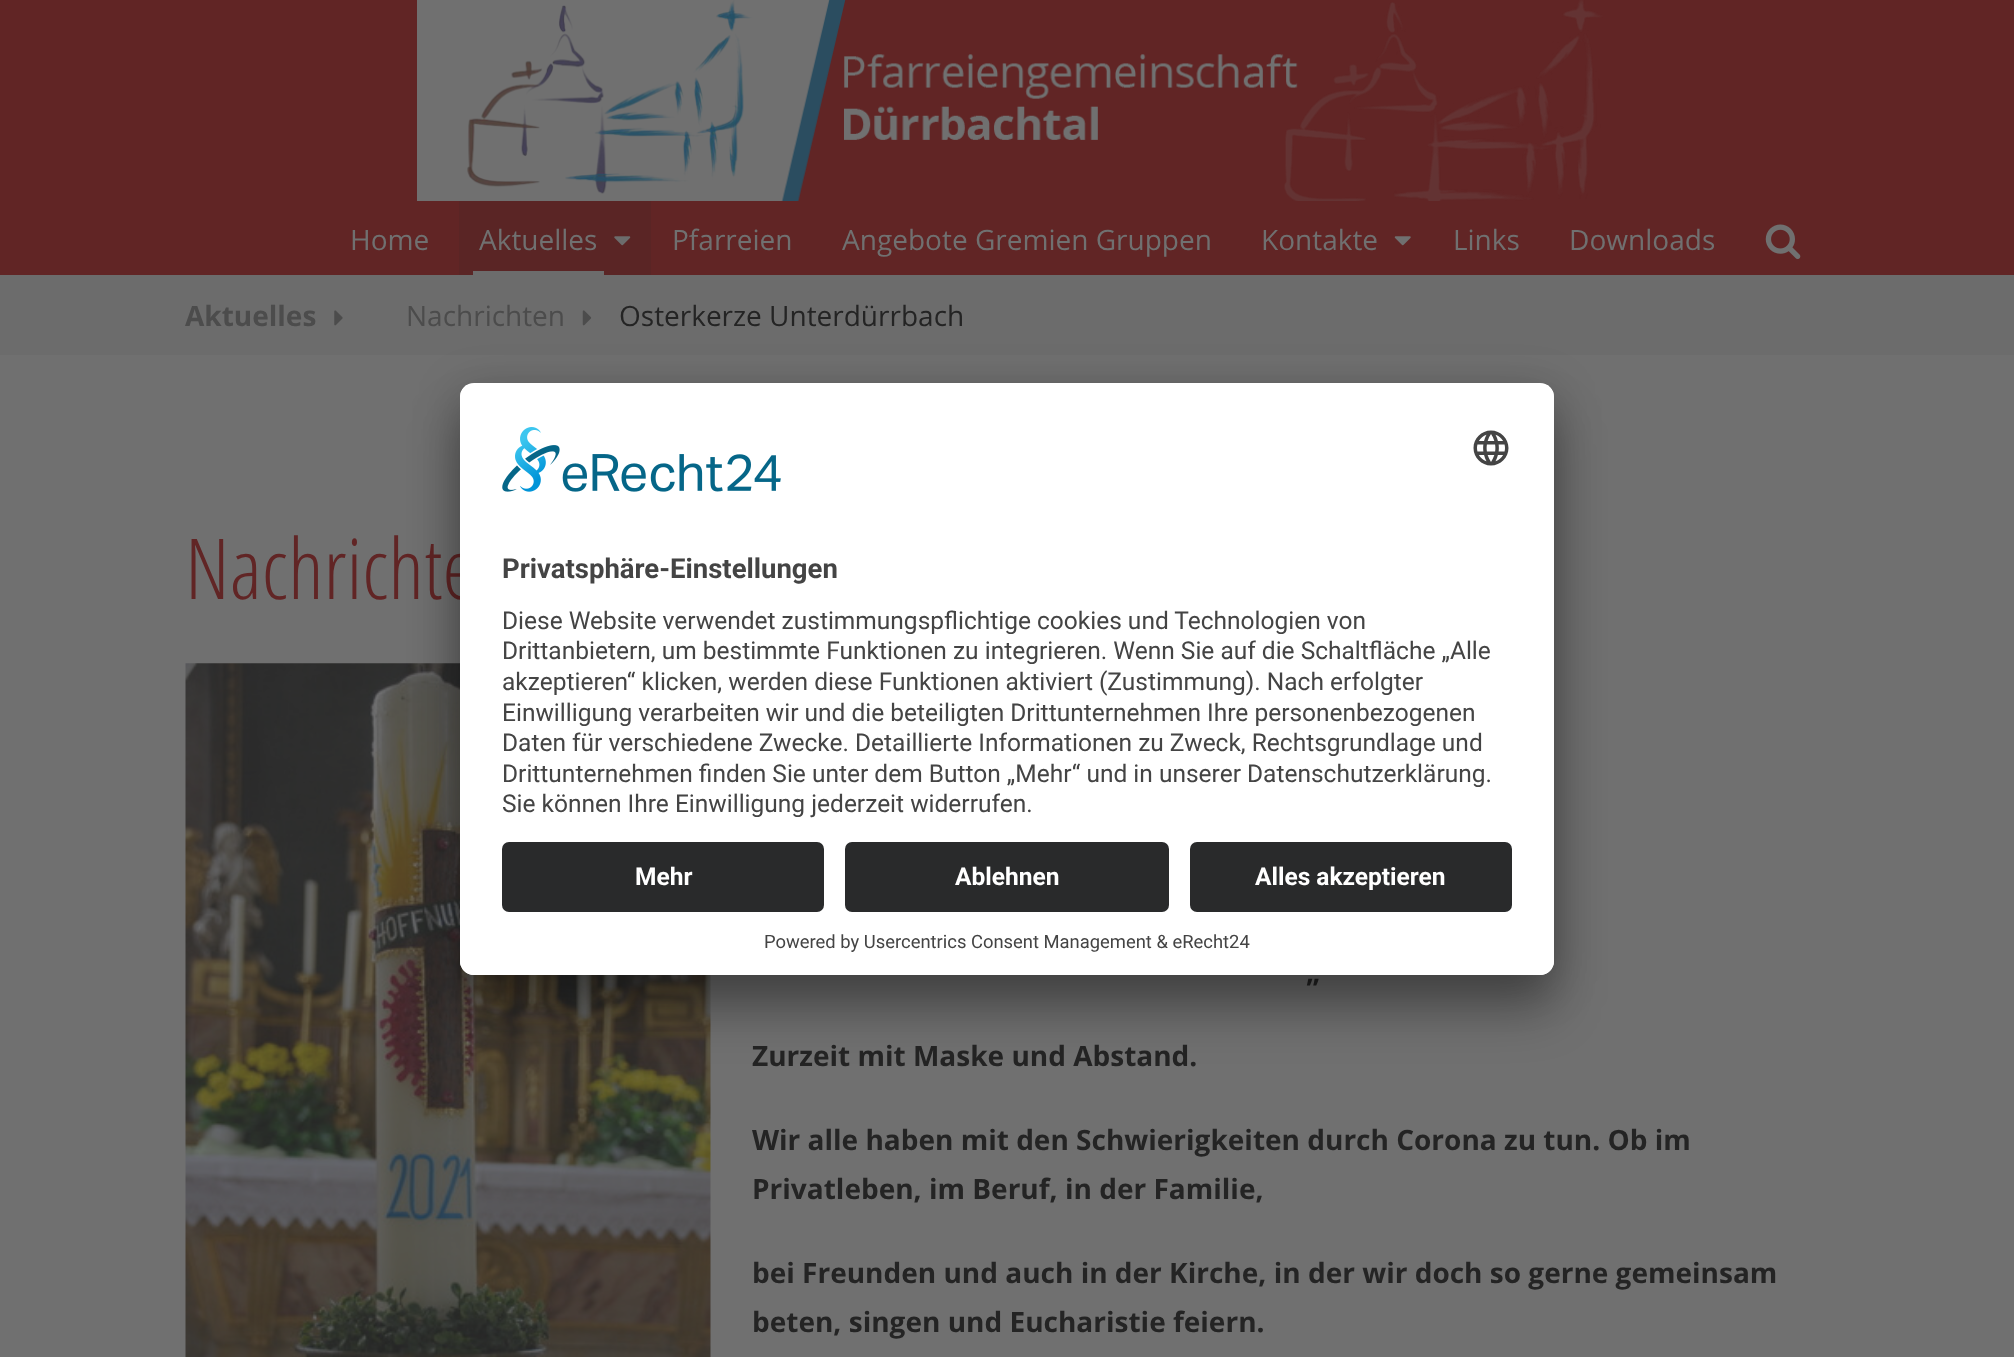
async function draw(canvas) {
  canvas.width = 2014
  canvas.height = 1357
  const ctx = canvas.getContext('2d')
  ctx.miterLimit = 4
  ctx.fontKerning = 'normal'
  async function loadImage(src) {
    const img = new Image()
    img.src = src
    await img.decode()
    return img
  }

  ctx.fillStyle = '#707070'
  ctx.fillRect(0, 0, 2014, 1357)
  ctx.fillStyle = '#612525'
  ctx.fillRect(0, 0, 2014, 275)
  ctx.drawImage(await loadImage('image0.png'), 417, 0, 1186, 201)
  ctx.font = '28px Open Sans'
  ctx.fillStyle = '#707070'
  ctx.fillText('Home', 350, 250)
  ctx.fillStyle = '#5a2525'
  ctx.fillRect(459, 201, 192, 74)
  ctx.fillStyle = '#707070'
  ctx.fillText('Aktuelles', 479, 250)
  ctx.drawImage(await loadImage('image1.png'), 614, 236, 17, 10)
  ctx.fillStyle = '#6c6c6c'
  ctx.fillRect(473, 271, 131, 4)
  ctx.fillStyle = '#707070'
  ctx.fillText('Pfarreien', 672, 250)
  ctx.fillText('Angebote Gremien Gruppen', 842, 250)
  ctx.fillText('Kontakte', 1261, 250)
  ctx.drawImage(await loadImage('image2.png'), 1394, 236, 17, 10)
  ctx.fillText('Links', 1453, 250)
  ctx.fillText('Downloads', 1569, 250)
  ctx.drawImage(await loadImage('image3.png'), 1765, 224, 36, 36)
  ctx.fillStyle = '#6c6c6c'
  ctx.fillRect(0, 275, 2014, 80)
  ctx.font = 'bold 28px Open Sans'
  ctx.fillStyle = '#4c4c4c'
  ctx.fillText('Aktuelles', 185, 326)
  ctx.drawImage(await loadImage('image4.png'), 334, 310, 9, 16)
  ctx.font = '28px Open Sans'
  ctx.fillText('Nachrichten', 406, 326)
  ctx.drawImage(await loadImage('image5.png'), 582, 310, 10, 16)
  ctx.fillStyle = '#242424'
  ctx.fillText('Osterkerze Unterdürrbach', 619, 326)
  ctx.font = '300 84px Open Sans Condensed'
  ctx.fillStyle = '#612525'
  ctx.fillText('Nachrichte', 185, 599)
  ctx.drawImage(await loadImage('image6.png'), 185, 663, 526, 694)
  ctx.font = 'bold 28px Open Sans'
  ctx.fillStyle = '#242424'
  ctx.fillText('„', 1306, 982)
  ctx.fillText('Zurzeit mit Maske und Abstand.', 752, 1066)
  ctx.fillText('Wir alle haben mit den Schwierigkeiten durch Corona zu tun. Ob im', 752, 1150)
  ctx.fillText('Privatleben, im Beruf, in der Familie,', 752, 1199)
  ctx.fillText('bei Freunden und auch in der Kirche, in der wir doch so gerne gemeinsam', 752, 1283)
  ctx.fillText('beten, singen und Eucharistie feiern.', 752, 1332)
  ctx.fillStyle = '#0000004d'
  ctx.filter = 'blur(24.5px)'
  ctx.beginPath()
  ctx.roundRect(460, 418, 1094, 592, 14)
  ctx.fill()
  ctx.filter = 'none'
  ctx.fillStyle = '#00000038'
  ctx.filter = 'blur(23px)'
  ctx.beginPath()
  ctx.roundRect(460, 392, 1094, 592, 14)
  ctx.fill()
  ctx.filter = 'none'
  ctx.fillStyle = '#fff'
  ctx.beginPath()
  ctx.roundRect(460, 383, 1094, 592, 14)
  ctx.fill()
  ctx.save()
  ctx.beginPath()
  ctx.roundRect(460, 383, 1094, 592, 14)
  ctx.clip()
  ctx.beginPath()
  ctx.roundRect(460, 383, 1094, 445, [14, 14, 0, 0])
  ctx.clip()
  ctx.fillRect(460, 385, 1094, 443)
  ctx.restore()
  ctx.drawImage(await loadImage('image7.png'), 502, 427, 279, 65)
  ctx.drawImage(await loadImage('image8.png'), 1473, 430, 36, 36)
  ctx.font = 'bold 27.5px Roboto'
  ctx.fillStyle = '#444'
  ctx.fillText('Privatsphäre-Einstellungen', 502, 578)
  ctx.font = '24.5px Roboto'
  ctx.fillText('Diese Website verwendet zustimmungspflichtige cookies und Technologien von', 502, 629)
  ctx.fillText('Drittanbietern, um bestimmte Funktionen zu integrieren. Wenn Sie auf die Schaltfläche „Alle', 502, 659)
  ctx.fillText('akzeptieren“ klicken, werden diese Funktionen aktiviert (Zustimmung). Nach erfolgter', 502, 690)
  ctx.fillText('Einwilligung verarbeiten wir und die beteiligten Drittunternehmen Ihre personenbezogenen', 502, 721)
  ctx.fillText('Daten für verschiedene Zwecke. Detaillierte Informationen zu Zweck, Rechtsgrundlage und', 502, 751)
  ctx.fillText('Drittunternehmen finden Sie unter dem Button „Mehr“ und in unserer Datenschutzerklärung.', 502, 782)
  ctx.fillText('Sie können Ihre Einwilligung jederzeit widerrufen.', 502, 812)
  ctx.fillStyle = '#fff'
  ctx.beginPath()
  ctx.roundRect(460, 828, 1094, 147, [0, 0, 14, 14])
  ctx.fill()
  ctx.fillStyle = '#292a2b'
  ctx.beginPath()
  ctx.roundRect(502, 842, 322, 70, 7)
  ctx.fill()
  ctx.font = 'bold 24.5px Roboto'
  ctx.fillStyle = '#fff'
  ctx.fillText('Mehr', 635, 885)
  ctx.fillStyle = '#292a2b'
  ctx.beginPath()
  ctx.roundRect(845, 842, 324, 70, 7)
  ctx.fill()
  ctx.fillStyle = '#fff'
  ctx.fillText('Ablehnen', 955, 885)
  ctx.fillStyle = '#292a2b'
  ctx.beginPath()
  ctx.roundRect(1190, 842, 322, 70, 7)
  ctx.fill()
  ctx.fillStyle = '#fff'
  ctx.fillText('Alles akzeptieren', 1255, 885)
  ctx.font = '18.4px Roboto'
  ctx.fillStyle = '#444'
  ctx.fillText('Powered by Usercentrics Consent Management & eRecht24', 764, 948)
}

draw(document.querySelector('canvas'))
